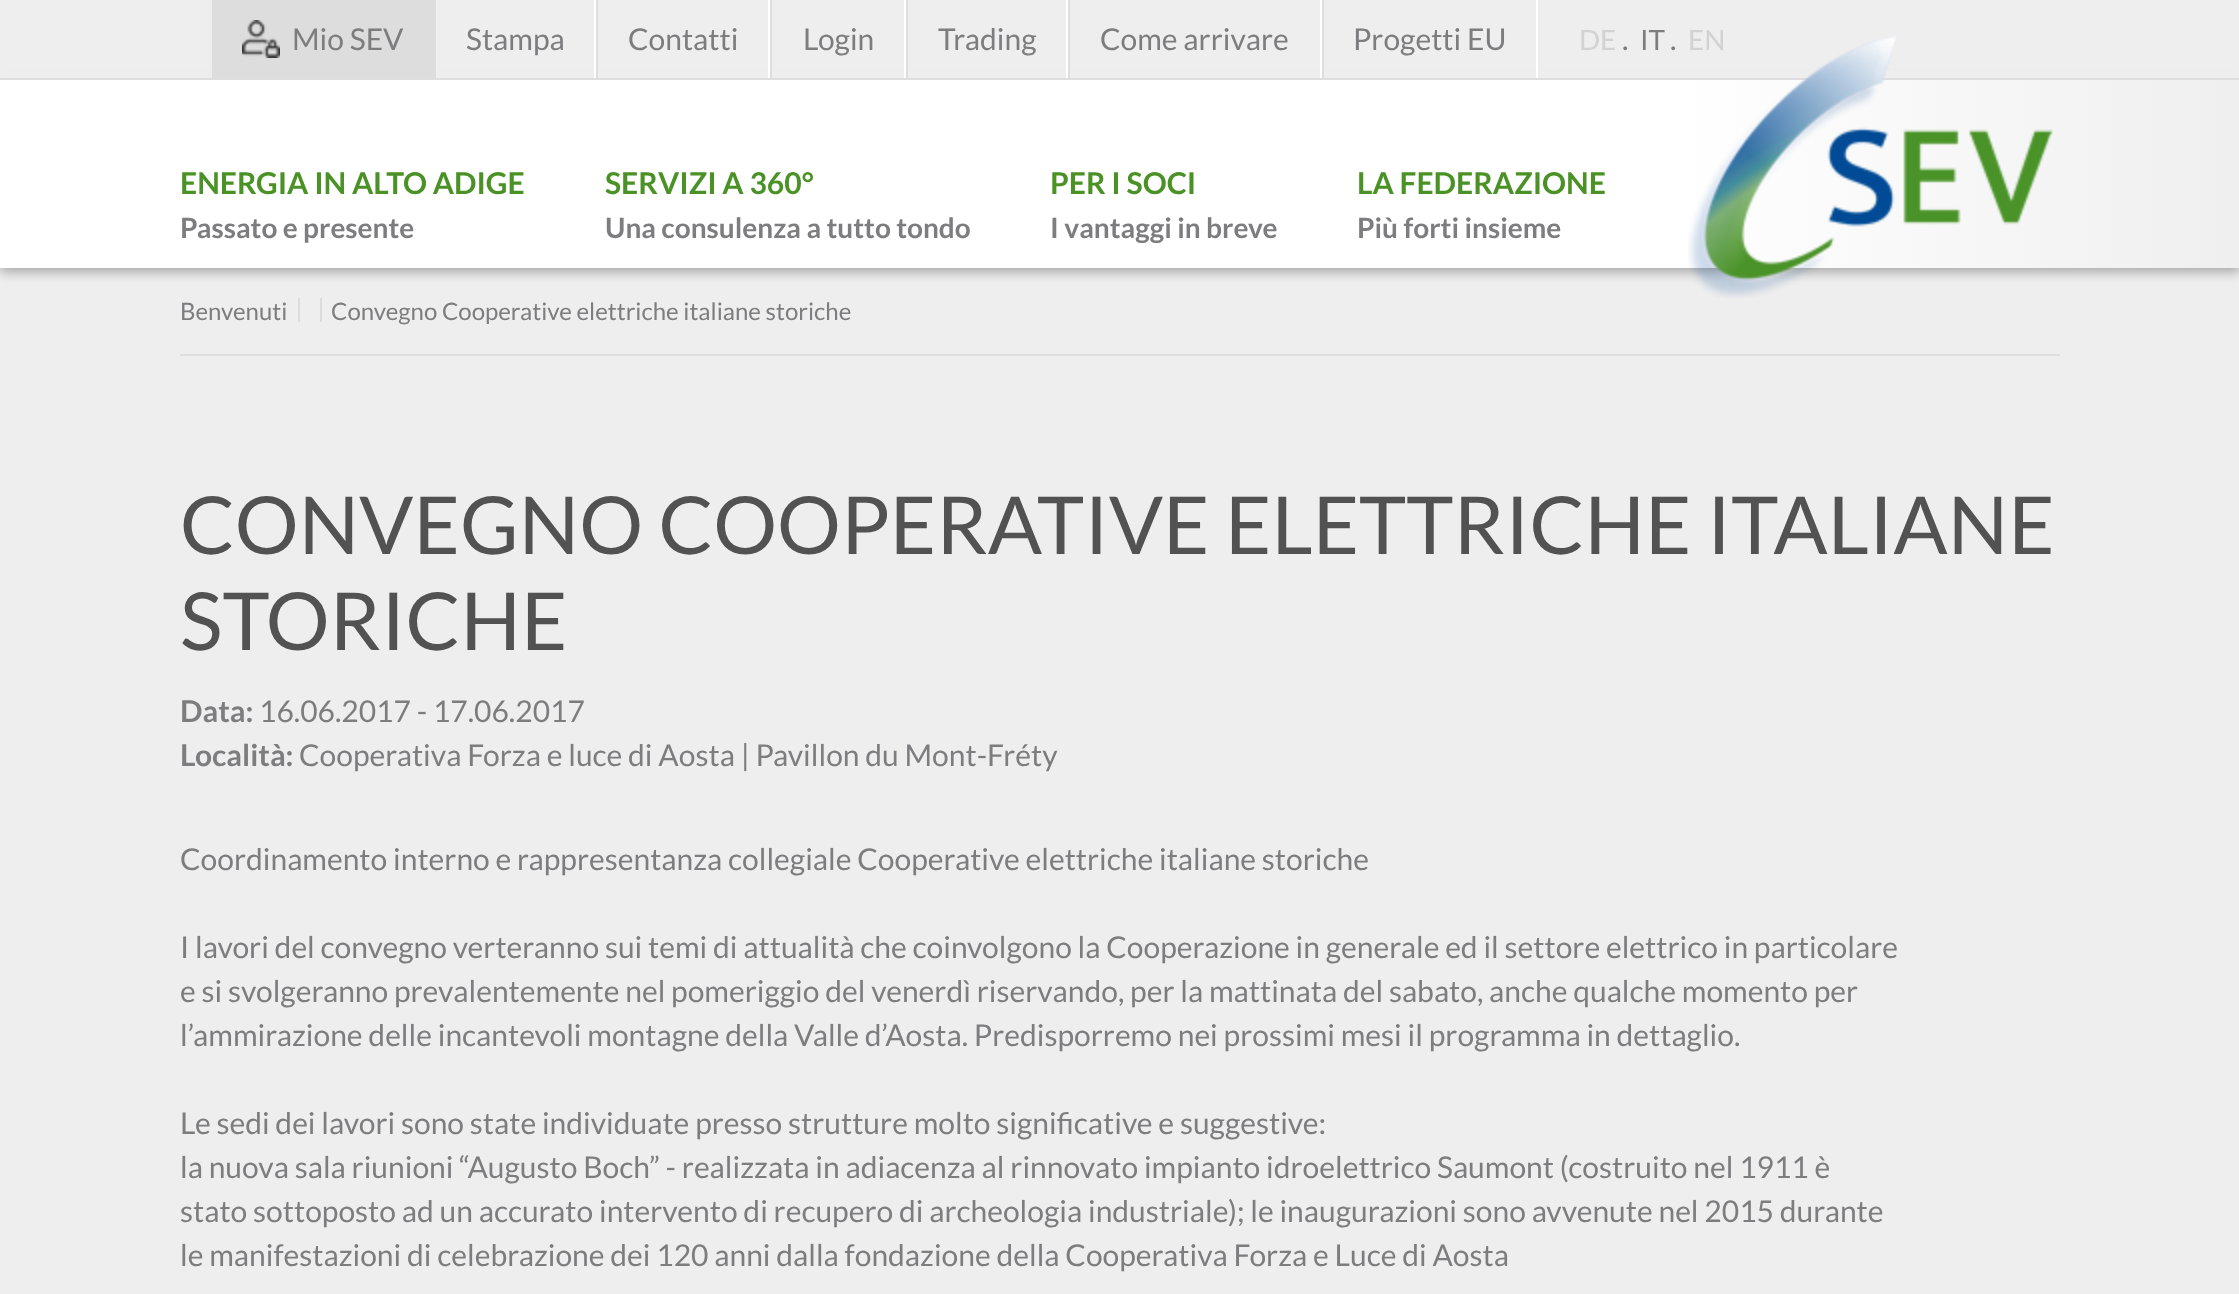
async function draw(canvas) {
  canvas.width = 2239
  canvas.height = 1294
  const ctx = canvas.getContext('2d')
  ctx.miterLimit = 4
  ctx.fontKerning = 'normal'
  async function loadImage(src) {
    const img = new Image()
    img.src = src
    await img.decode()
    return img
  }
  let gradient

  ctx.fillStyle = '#eee'
  ctx.fillRect(0, 0, 2239, 1294)
  ctx.fillStyle = '#0000004d'
  ctx.filter = 'blur(6px)'
  ctx.beginPath()
  ctx.rect(0, 82, 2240, 190)
  ctx.fill()
  ctx.filter = 'none'
  ctx.fillStyle = '#eee'
  ctx.fillRect(0, 71, 2239, 7)
  ctx.fillStyle = '#dedede'
  ctx.fillRect(0, 78, 2239, 2)
  ctx.fillStyle = '#ddd'
  ctx.fillRect(212, 0, 222, 78)
  ctx.drawImage(await loadImage('image0.png'), 242, 20, 38, 38)
  ctx.font = '30px Lato'
  ctx.fillStyle = '#7d7d7f'
  ctx.fillText('Mio SEV', 292, 50)
  ctx.fillStyle = '#fff'
  ctx.fillRect(594, 0, 2, 78)
  ctx.fillStyle = '#dedede'
  ctx.fillRect(434, 0, 2, 78)
  ctx.fillStyle = '#7d7d7f'
  ctx.fillText('Stampa', 466, 50)
  ctx.fillStyle = '#fff'
  ctx.fillRect(768, 0, 2, 78)
  ctx.fillStyle = '#dedede'
  ctx.fillRect(596, 0, 2, 78)
  ctx.fillStyle = '#7d7d7f'
  ctx.fillText('Contatti', 628, 50)
  ctx.fillStyle = '#fff'
  ctx.fillRect(904, 0, 2, 78)
  ctx.fillStyle = '#dedede'
  ctx.fillRect(770, 0, 2, 78)
  ctx.fillStyle = '#7d7d7f'
  ctx.fillText('Login', 803, 50)
  ctx.fillStyle = '#fff'
  ctx.fillRect(1066, 0, 2, 78)
  ctx.fillStyle = '#dedede'
  ctx.fillRect(906, 0, 2, 78)
  ctx.fillStyle = '#7d7d7f'
  ctx.fillText('Trading', 938, 50)
  ctx.fillStyle = '#fff'
  ctx.fillRect(1320, 0, 2, 78)
  ctx.fillStyle = '#dedede'
  ctx.fillRect(1068, 0, 2, 78)
  ctx.fillStyle = '#7d7d7f'
  ctx.fillText('Come arrivare', 1100, 50)
  ctx.fillStyle = '#fff'
  ctx.fillRect(1536, 0, 2, 78)
  ctx.fillStyle = '#dedede'
  ctx.fillRect(1322, 0, 2, 78)
  ctx.fillStyle = '#7d7d7f'
  ctx.fillText('Progetti EU', 1353, 50)
  ctx.font = '28px Lato'
  ctx.fillStyle = '#d2d2d2'
  ctx.fillText('DE', 1579, 50)
  ctx.font = '30px Lato'
  ctx.fillStyle = '#7d7d7f'
  ctx.fillText('.', 1622, 50)
  ctx.font = '28px Lato'
  ctx.fillText('IT', 1640, 50)
  ctx.font = '30px Lato'
  ctx.fillText('.', 1670, 50)
  ctx.font = '28px Lato'
  ctx.fillStyle = '#d2d2d2'
  ctx.fillText('EN', 1688, 50)
  gradient = ctx.createLinearGradient(0, 173, 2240, 173)
  gradient.addColorStop(0, '#fff')
  gradient.addColorStop(0.75, '#fff')
  gradient.addColorStop(1, '#efefef')
  ctx.fillStyle = gradient
  ctx.fillRect(0, 80, 2239, 188)
  ctx.font = 'bold 30px Lato'
  ctx.fillStyle = '#4a9226'
  ctx.fillText('ENERGIA IN ALTO ADIGE', 180, 194)
  ctx.font = 'bold 28px Lato'
  ctx.fillStyle = '#7d7d7f'
  ctx.fillText('Passato e presente', 180, 238)
  ctx.font = 'bold 30px Lato'
  ctx.fillStyle = '#4a9226'
  ctx.fillText('SERVIZI A 360°', 605, 194)
  ctx.font = 'bold 28px Lato'
  ctx.fillStyle = '#7d7d7f'
  ctx.fillText('Una consulenza a tutto tondo', 605, 238)
  ctx.font = 'bold 30px Lato'
  ctx.fillStyle = '#4a9226'
  ctx.fillText('PER I SOCI', 1050, 194)
  ctx.font = 'bold 28px Lato'
  ctx.fillStyle = '#7d7d7f'
  ctx.fillText('I vantaggi in breve', 1050, 238)
  ctx.font = 'bold 30px Lato'
  ctx.fillStyle = '#4a9226'
  ctx.fillText('LA FEDERAZIONE', 1357, 194)
  ctx.font = 'bold 28px Lato'
  ctx.fillStyle = '#7d7d7f'
  ctx.fillText('Più forti insieme', 1357, 238)
  ctx.drawImage(await loadImage('image1.png'), 1688, 36, 365, 262)
  ctx.fillStyle = '#dedede'
  ctx.fillRect(180, 354, 1880, 2)
  ctx.font = '24px Lato'
  ctx.fillStyle = '#7d7d7f'
  ctx.fillText('Benvenuti', 180, 320)
  ctx.fillStyle = '#ddd'
  ctx.fillRect(298, 298, 2, 24)
  ctx.fillRect(320, 298, 2, 24)
  ctx.fillStyle = '#7d7d7f'
  ctx.fillText('Convegno Cooperative elettriche italiane storiche', 331, 320)
  ctx.font = '80px Lato'
  ctx.fillStyle = '#525253'
  ctx.fillText('CONVEGNO COOPERATIVE ELETTRICHE ITALIANE', 180, 554)
  ctx.fillText('STORICHE', 180, 650)
  ctx.font = 'bold 30px Lato'
  ctx.fillStyle = '#7d7d7f'
  ctx.fillText('Data:', 180, 722)
  ctx.font = '30px Lato'
  ctx.fillText('16.06.2017 - 17.06.2017', 259, 722)
  ctx.font = 'bold 30px Lato'
  ctx.fillText('Località:', 180, 766)
  ctx.font = '30px Lato'
  ctx.fillText('Cooperativa Forza e luce di Aosta | Pavillon du Mont-Fréty', 299, 766)
  ctx.fillText('Coordinamento interno e rappresentanza collegiale Cooperative elettriche italiane storiche', 180, 870)
  ctx.fillText('I lavori del convegno verteranno sui temi di attualità che coinvolgono la Cooperazione in generale ed il settore elettrico in particolare', 180, 958)
  ctx.fillText('e si svolgeranno prevalentemente nel pomeriggio del venerdì riservando, per la mattinata del sabato, anche qualche momento per', 180, 1002)
  ctx.fillText('l’ammirazione delle incantevoli montagne della Valle d’Aosta. Predisporremo nei prossimi mesi il programma in dettaglio.', 180, 1046)
  ctx.fillText('Le sedi dei lavori sono state individuate presso strutture molto significative e suggestive:', 180, 1134)
  ctx.fillText('la nuova sala riunioni “Augusto Boch” - realizzata in adiacenza al rinnovato impianto idroelettrico Saumont (costruito nel 1911 è', 180, 1178)
  ctx.fillText('stato sottoposto ad un accurato intervento di recupero di archeologia industriale); le inaugurazioni sono avvenute nel 2015 durante', 180, 1222)
  ctx.fillText('le manifestazioni di celebrazione dei 120 anni dalla fondazione della Cooperativa Forza e Luce di Aosta', 180, 1266)
}

draw(document.querySelector('canvas'))
